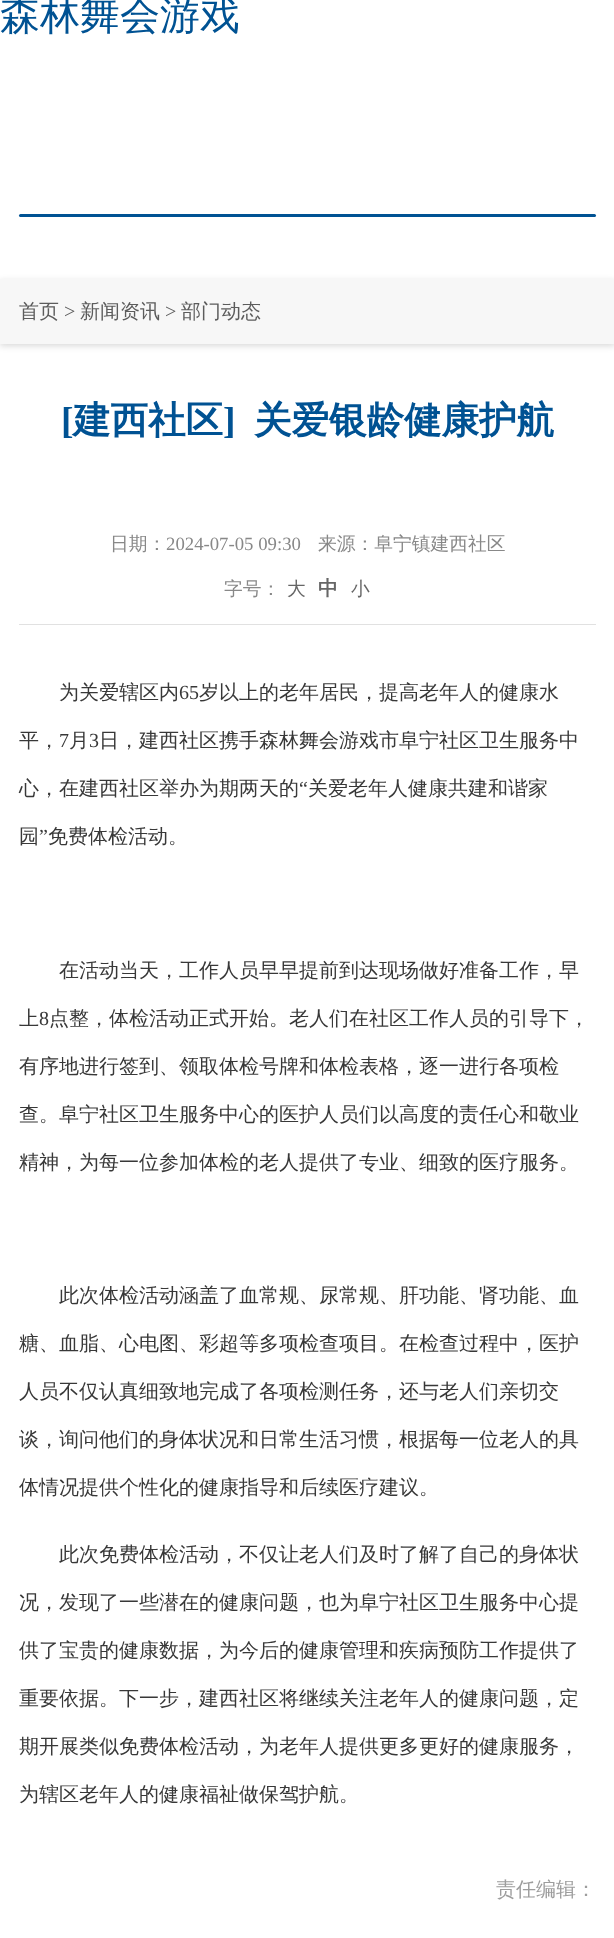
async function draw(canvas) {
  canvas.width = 614
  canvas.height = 1938
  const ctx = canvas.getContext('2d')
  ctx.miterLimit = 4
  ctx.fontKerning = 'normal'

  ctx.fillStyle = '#fff'
  ctx.fillRect(0, 0, 614, 1938)
  ctx.font = '500 40px WenQuanYi Zen Hei'
  ctx.fillStyle = '#005293'
  ctx.fillText('森林舞会游戏', 0, 29)
  ctx.beginPath()
  ctx.roundRect(19, 214, 577, 3, 1.5)
  ctx.fill()
  ctx.fillStyle = '#00000026'
  ctx.filter = 'blur(3px)'
  ctx.beginPath()
  ctx.rect(0, 281, 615, 65)
  ctx.fill()
  ctx.filter = 'none'
  ctx.fillStyle = '#f7f7f7'
  ctx.fillRect(0, 279, 614, 65)
  ctx.font = '500 20px WenQuanYi Zen Hei'
  ctx.fillStyle = '#5c5c5c'
  ctx.fillText('首页', 19, 318)
  ctx.font = '20px Liberation Serif'
  ctx.fillText('>', 64, 318)
  ctx.font = '500 20px WenQuanYi Zen Hei'
  ctx.fillText('新闻资讯', 80, 318)
  ctx.font = '20px Liberation Serif'
  ctx.fillText('>', 165, 318)
  ctx.font = '500 20px WenQuanYi Zen Hei'
  ctx.fillText('部门动态', 181, 318)
  ctx.font = 'bold 37.5px Liberation Serif'
  ctx.fillStyle = '#005293'
  ctx.fillText('[', 61, 433)
  ctx.font = 'bold 37.5px WenQuanYi Zen Hei'
  ctx.fillText('建西社区', 73, 433)
  ctx.font = 'bold 37.5px Liberation Serif'
  ctx.fillText(']', 223, 433)
  ctx.font = 'bold 37.5px WenQuanYi Zen Hei'
  ctx.fillText('关爱银龄健康护航', 254, 433)
  ctx.fillStyle = '#e1e1e1'
  ctx.fillRect(19, 624, 577, 1)
  ctx.font = '500 18.75px WenQuanYi Zen Hei'
  ctx.fillStyle = '#888'
  ctx.fillText('日期：', 110, 550)
  ctx.font = '18.75px Liberation Serif'
  ctx.fillText('2024-07-05 09:30', 166, 550)
  ctx.font = '500 18.75px WenQuanYi Zen Hei'
  ctx.fillText('来源：阜宁镇建西社区', 318, 550)
  ctx.fillText('字号：', 224, 595)
  ctx.fillStyle = '#666'
  ctx.fillText('大', 287, 595)
  ctx.font = 'bold 20px WenQuanYi Zen Hei'
  ctx.fillText('中', 318, 595)
  ctx.font = '500 18.75px WenQuanYi Zen Hei'
  ctx.fillText('小', 351, 595)
  ctx.font = '500 20px WenQuanYi Zen Hei'
  ctx.fillStyle = '#383838'
  ctx.fillText('为关爱辖区内', 59, 699)
  ctx.font = '20px Liberation Serif'
  ctx.fillText('65', 179, 699)
  ctx.font = '500 20px WenQuanYi Zen Hei'
  ctx.fillText('岁以上的老年居民，提高老年人的健康水', 199, 699)
  ctx.fillText('平，', 19, 747)
  ctx.font = '20px Liberation Serif'
  ctx.fillText('7', 59, 747)
  ctx.font = '500 20px WenQuanYi Zen Hei'
  ctx.fillText('月', 69, 747)
  ctx.font = '20px Liberation Serif'
  ctx.fillText('3', 89, 747)
  ctx.font = '500 20px WenQuanYi Zen Hei'
  ctx.fillText('日，建西社区携手森林舞会游戏市阜宁社区卫生服务中', 99, 747)
  ctx.fillText('心，在建西社区举办为期两天的', 19, 795)
  ctx.font = '20px Liberation Serif'
  ctx.fillText('“', 299, 795)
  ctx.font = '500 20px WenQuanYi Zen Hei'
  ctx.fillText('关爱老年人健康共建和谐家', 308, 795)
  ctx.fillText('园', 19, 843)
  ctx.font = '20px Liberation Serif'
  ctx.fillText('”', 39, 843)
  ctx.font = '500 20px WenQuanYi Zen Hei'
  ctx.fillText('免费体检活动。', 48, 843)
  ctx.fillText('在活动当天，工作人员早早提前到达现场做好准备工作，早', 59, 977)
  ctx.fillText('上', 19, 1025)
  ctx.font = '20px Liberation Serif'
  ctx.fillText('8', 39, 1025)
  ctx.font = '500 20px WenQuanYi Zen Hei'
  ctx.fillText('点整，体检活动正式开始。老人们在社区工作人员的引导下，', 49, 1025)
  ctx.fillText('有序地进行签到、领取体检号牌和体检表格，逐一进行各项检', 19, 1073)
  ctx.fillText('查。阜宁社区卫生服务中心的医护人员们以高度的责任心和敬业', 19, 1121)
  ctx.fillText('精神，为每一位参加体检的老人提供了专业、细致的医疗服务。', 19, 1169)
  ctx.fillText('此次体检活动涵盖了血常规、尿常规、肝功能、肾功能、血', 59, 1302)
  ctx.fillText('糖、血脂、心电图、彩超等多项检查项目。在检查过程中，医护', 19, 1350)
  ctx.fillText('人员不仅认真细致地完成了各项检测任务，还与老人们亲切交', 19, 1398)
  ctx.fillText('谈，询问他们的身体状况和日常生活习惯，根据每一位老人的具', 19, 1446)
  ctx.fillText('体情况提供个性化的健康指导和后续医疗建议。', 19, 1494)
  ctx.fillText('此次免费体检活动，不仅让老人们及时了解了自己的身体状', 59, 1561)
  ctx.fillText('况，发现了一些潜在的健康问题，也为阜宁社区卫生服务中心提', 19, 1609)
  ctx.fillText('供了宝贵的健康数据，为今后的健康管理和疾病预防工作提供了', 19, 1657)
  ctx.fillText('重要依据。下一步，建西社区将继续关注老年人的健康问题，定', 19, 1705)
  ctx.fillText('期开展类似免费体检活动，为老年人提供更多更好的健康服务，', 19, 1753)
  ctx.fillText('为辖区老年人的健康福祉做保驾护航。', 19, 1801)
  ctx.fillStyle = '#9d9d9d'
  ctx.fillText('责任编辑：', 496, 1896)
}

draw(document.querySelector('canvas'))
